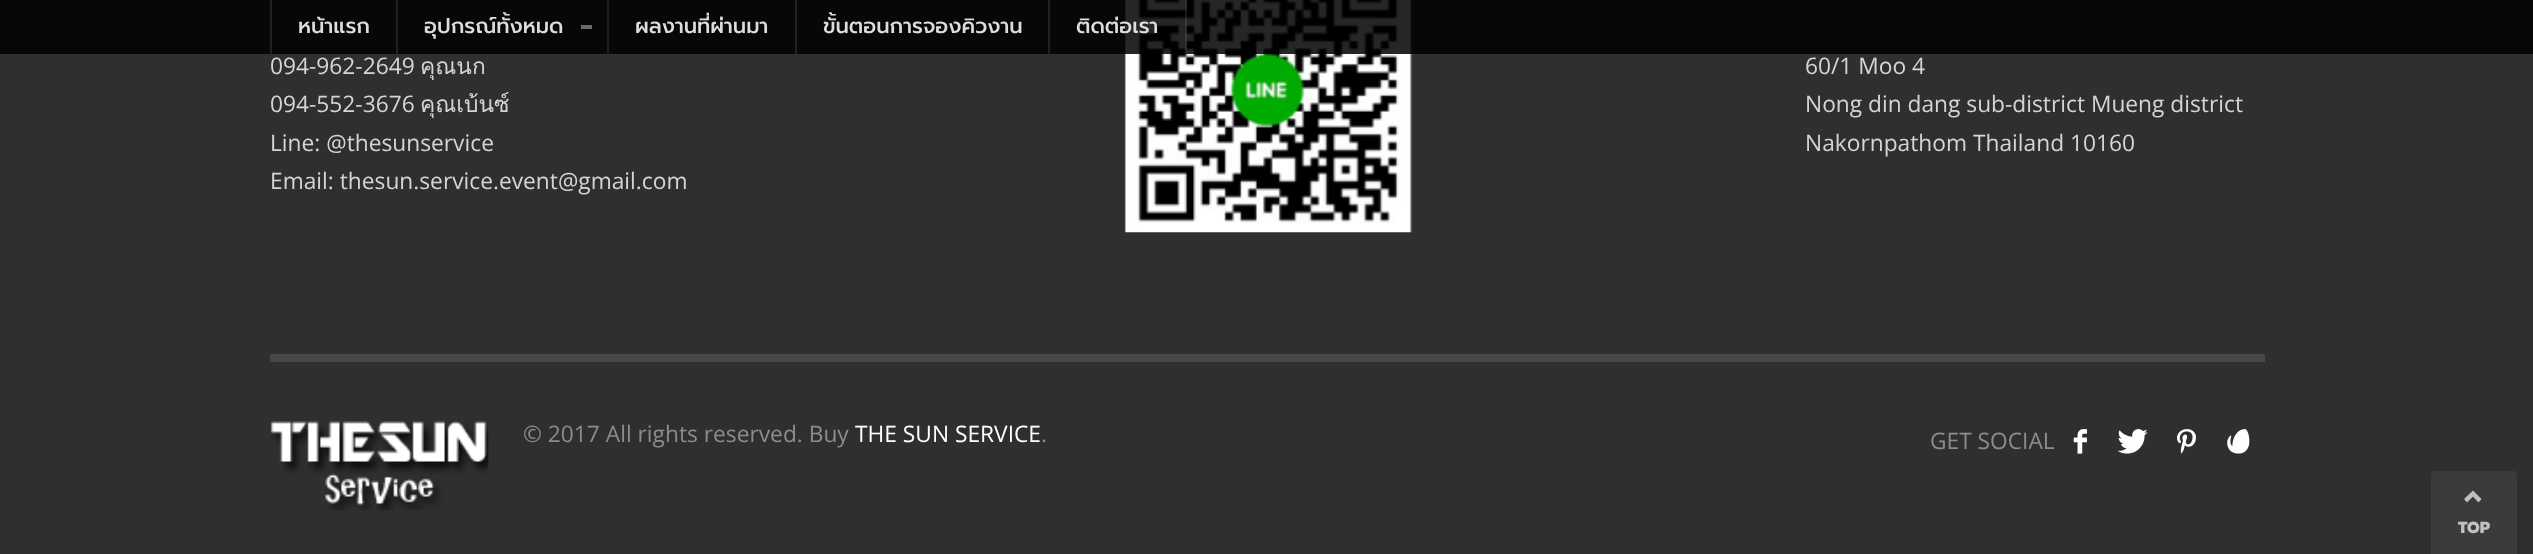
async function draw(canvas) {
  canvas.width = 2533
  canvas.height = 554
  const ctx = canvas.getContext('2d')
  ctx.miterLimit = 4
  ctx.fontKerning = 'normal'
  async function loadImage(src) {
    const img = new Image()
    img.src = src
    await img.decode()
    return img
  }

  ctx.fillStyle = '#2f2f2f'
  ctx.fillRect(0, 0, 2533, 554)
  ctx.drawImage(await loadImage('image0.png'), 1124, 0, 289, 233)
  ctx.fillStyle = '#000000d9'
  ctx.fillRect(0, 0, 2533, 54)
  ctx.fillStyle = '#ffffff1a'
  ctx.fillRect(270, 0, 2, 54)
  ctx.font = '500 21px Prompt'
  ctx.fillStyle = '#ddd'
  ctx.fillText('หน้าแรก', 298, 33)
  ctx.fillStyle = '#ffffff1a'
  ctx.fillRect(396, 0, 2, 54)
  ctx.fillStyle = '#ddd'
  ctx.fillText('อุปกรณ์ทั้งหมด', 424, 33)
  ctx.fillStyle = '#6a6a6a'
  ctx.fillRect(581, 25, 11, 4)
  ctx.fillStyle = '#202020'
  ctx.fillRect(607, 0, 2, 54)
  ctx.fillStyle = '#ddd'
  ctx.fillText('ผลงานที่ผ่านมา', 635, 33)
  ctx.fillStyle = '#202020'
  ctx.fillRect(795, 0, 2, 54)
  ctx.fillStyle = '#ddd'
  ctx.fillText('ขั้นตอนการจองคิวงาน', 823, 33)
  ctx.fillStyle = '#ffffff1a'
  ctx.fillRect(1185, 0, 2, 54)
  ctx.fillStyle = '#202020'
  ctx.fillRect(1048, 0, 2, 54)
  ctx.fillStyle = '#ddd'
  ctx.fillText('ติดต่อเรา', 1076, 33)
  ctx.font = '22.75px Open Sans'
  ctx.fillStyle = '#d5d5d5'
  ctx.fillText('094-962-2649', 270, 74)
  ctx.font = '22.75px Loma'
  ctx.fillText('คุณนก', 420, 74)
  ctx.font = '22.75px Open Sans'
  ctx.fillText('094-552-3676', 270, 112)
  ctx.font = '22.75px Loma'
  ctx.fillText('คุณเบ้นซ์', 420, 112)
  ctx.font = '22.75px Open Sans'
  ctx.fillText('Line: @thesunservice', 270, 151)
  ctx.fillText('Email: thesun.service.event@gmail.com', 270, 189)
  ctx.fillText('60/1 Moo 4', 1805, 74)
  ctx.fillText('Nong din dang sub-district Mueng district', 1805, 112)
  ctx.fillText('Nakornpathom Thailand 10160', 1805, 151)
  ctx.fillStyle = '#484848'
  ctx.fillRect(270, 354, 1995, 8)
  ctx.drawImage(await loadImage('image1.png'), 270, 421, 219, 90)
  ctx.fillStyle = '#8b8c8d'
  ctx.fillText('© 2017 All rights reserved. Buy', 523, 442)
  ctx.fillStyle = '#fff'
  ctx.fillText('THE SUN SERVICE', 855, 442)
  ctx.fillStyle = '#8b8c8d'
  ctx.fillText('.', 1041, 442)
  ctx.fillText('GET SOCIAL', 1930, 449)
  ctx.drawImage(await loadImage('image2.png'), 2073, 429, 14, 25)
  ctx.drawImage(await loadImage('image3.png'), 2117, 429, 31, 25)
  ctx.drawImage(await loadImage('image4.png'), 2177, 429, 19, 25)
  ctx.drawImage(await loadImage('image5.png'), 2227, 429, 23, 25)
  ctx.fillStyle = '#3b3b3b'
  ctx.beginPath()
  ctx.roundRect(2431, 471, 86, 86, 4)
  ctx.fill()
  ctx.fillStyle = '#c1c1c1'
  ctx.beginPath()
  ctx.moveTo(2473, 490.5)
  ctx.lineTo(2481.5, 499)
  ctx.lineTo(2478.5, 502.5)
  ctx.lineTo(2473, 496.5)
  ctx.lineTo(2467, 502.5)
  ctx.lineTo(2464, 499)
  ctx.closePath()
  ctx.fill()
  ctx.font = '800 16px Prompt'
  ctx.fillText('TOP', 2458, 533)
}

draw(document.querySelector('canvas'))
